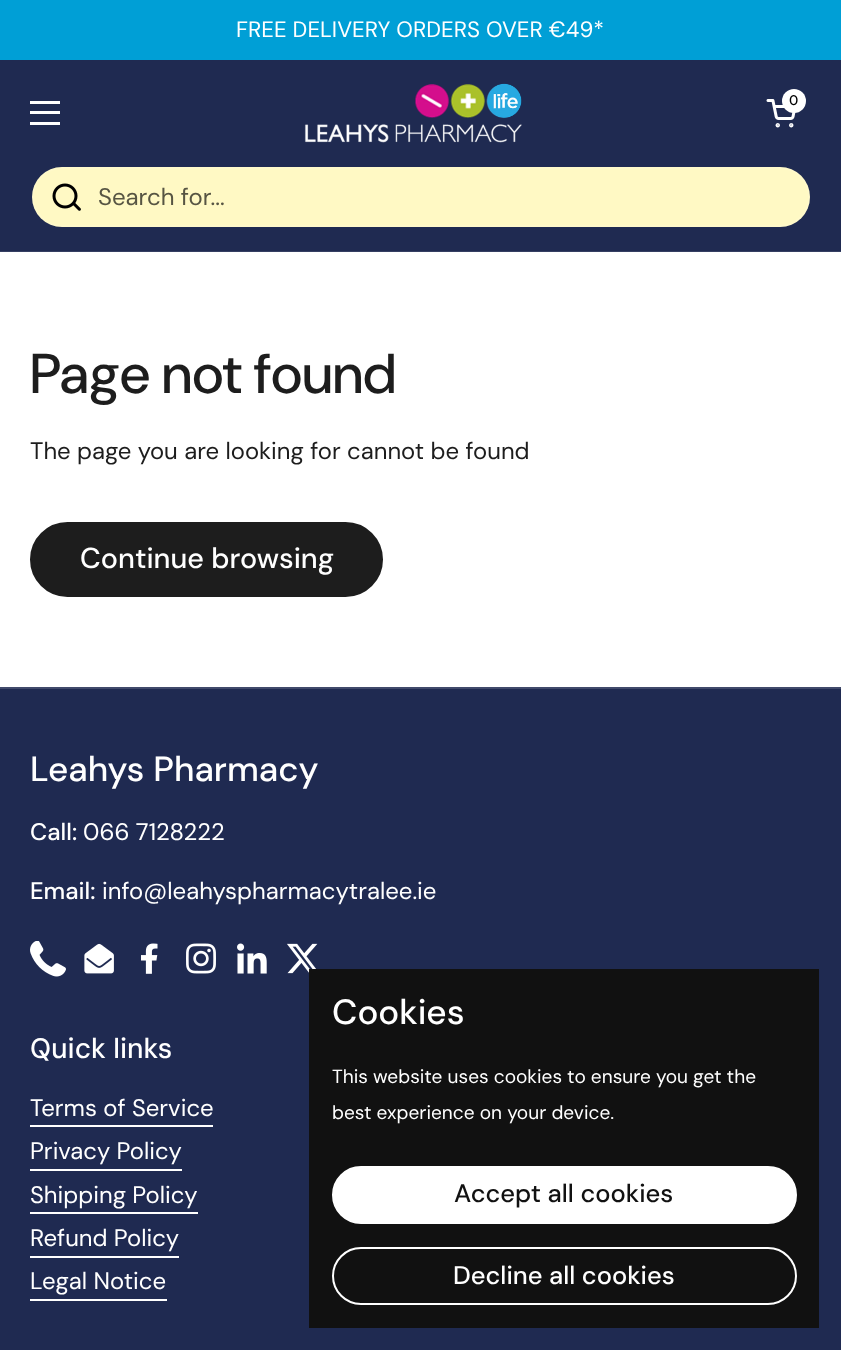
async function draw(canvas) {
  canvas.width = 841
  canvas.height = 1350
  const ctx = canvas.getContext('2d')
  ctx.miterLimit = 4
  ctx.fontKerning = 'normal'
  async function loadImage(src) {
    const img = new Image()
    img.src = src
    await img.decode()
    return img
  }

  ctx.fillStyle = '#fff'
  ctx.fillRect(0, 0, 841, 1350)
  ctx.fillStyle = '#009fd6'
  ctx.fillRect(0, 0, 841, 60)
  ctx.font = '22.25px DM Sans'
  ctx.fillStyle = '#fff'
  ctx.fillText('FREE DELIVERY ORDERS OVER €49*', 236, 37)
  ctx.fillStyle = '#1f2a51'
  ctx.fillRect(0, 60, 841, 191)
  ctx.fillStyle = '#353f62'
  ctx.fillRect(0, 251, 841, 1)
  ctx.fillStyle = '#fff'
  ctx.fillRect(30, 101, 30, 3)
  ctx.fillRect(30, 111, 30, 3)
  ctx.fillRect(30, 122, 30, 3)
  ctx.drawImage(await loadImage('image0.png'), 304, 83, 218, 60)
  ctx.drawImage(await loadImage('image1.png'), 766, 99, 30, 29)
  ctx.beginPath()
  ctx.arc(794, 101, 12, 0, 2 * Math.PI)
  ctx.fill()
  ctx.font = '500 14px "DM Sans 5"'
  ctx.fillStyle = '#000'
  ctx.fillText('0', 789, 105)
  ctx.fillStyle = '#fff9c4'
  ctx.beginPath()
  ctx.roundRect(32, 167, 778, 60, 30)
  ctx.fill()
  ctx.beginPath()
  ctx.roundRect(33, 168, 776, 58, 29)
  ctx.strokeStyle = '#ffffff1a'
  ctx.lineWidth = 2
  ctx.stroke()
  ctx.drawImage(await loadImage('image2.png'), 52, 183, 29, 28)
  ctx.font = '24px "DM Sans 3"'
  ctx.fillStyle = '#575543'
  ctx.fillText('Search for...', 98, 205)
  ctx.font = '500 56px DM Sans'
  ctx.fillStyle = '#1d1d1d'
  ctx.fillText('Page not found', 30, 393)
  ctx.font = '23.9px "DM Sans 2"'
  ctx.fillText('The page you are looking for cannot be found', 30, 459)
  ctx.beginPath()
  ctx.roundRect(31, 523, 351, 73, 36.5)
  ctx.fill()
  ctx.strokeStyle = '#1d1d1d'
  ctx.stroke()
  ctx.font = '500 28.75px "DM Sans 2"'
  ctx.fillStyle = '#fff'
  ctx.fillText('Continue browsing', 80, 568)
  ctx.fillStyle = '#1f2a51'
  ctx.fillRect(0, 689, 841, 661)
  ctx.fillStyle = '#414a6b'
  ctx.fillRect(0, 687, 841, 2)
  ctx.font = '500 35px "DM Sans 3"'
  ctx.fillStyle = '#fff'
  ctx.fillText('Leahys Pharmacy', 30, 781)
  ctx.font = '500 23.9px "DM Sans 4"'
  ctx.fillText('Call:', 30, 840)
  ctx.font = '23.9px "DM Sans 2"'
  ctx.fillText('066 7128222', 83, 840)
  ctx.font = '500 23.9px "DM Sans 4"'
  ctx.fillText('Email:', 30, 899)
  ctx.font = '23.9px "DM Sans 2"'
  ctx.fillText('info@leahyspharmacytralee.ie', 102, 899)
  ctx.drawImage(await loadImage('image3.png'), 30, 941, 36, 36)
  ctx.drawImage(await loadImage('image4.png'), 84, 943, 30, 31)
  ctx.drawImage(await loadImage('image5.png'), 141, 943, 17, 31)
  ctx.drawImage(await loadImage('image6.png'), 186, 943, 30, 31)
  ctx.drawImage(await loadImage('image7.png'), 237, 943, 30, 31)
  ctx.drawImage(await loadImage('image8.png'), 287, 943, 31, 31)
  ctx.font = '500 28px "DM Sans 5"'
  ctx.fillText('Quick links', 30, 1058)
  ctx.font = '23.9px "DM Sans 2"'
  ctx.fillText('Terms of Service', 30, 1116)
  ctx.fillRect(30, 1125, 183, 2)
  ctx.fillText('Privacy Policy', 30, 1159)
  ctx.fillRect(30, 1169, 152, 2)
  ctx.fillText('Shipping Policy', 30, 1203)
  ctx.fillRect(30, 1212, 168, 2)
  ctx.fillText('Refund Policy', 30, 1246)
  ctx.fillRect(30, 1256, 149, 2)
  ctx.fillText('Legal Notice', 30, 1289)
  ctx.fillRect(30, 1299, 137, 2)
  ctx.fillStyle = '#111'
  ctx.fillRect(309, 969, 510, 359)
  ctx.font = '500 35px "DM Sans 3"'
  ctx.fillStyle = '#fff'
  ctx.fillText('Cookies', 332, 1024)
  ctx.font = '19.1px "DM Sans 4"'
  ctx.fillText('This website uses cookies to ensure you get the', 332, 1083)
  ctx.fillText('best experience on your device.', 332, 1119)
  ctx.beginPath()
  ctx.roundRect(333, 1167, 463, 56, 28)
  ctx.fill()
  ctx.strokeStyle = '#fff'
  ctx.stroke()
  ctx.font = '500 25.5px "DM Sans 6"'
  ctx.fillStyle = '#111'
  ctx.fillText('Accept all cookies', 454, 1202)
  ctx.beginPath()
  ctx.roundRect(333, 1248, 463, 56, 28)
  ctx.stroke()
  ctx.fillStyle = '#fff'
  ctx.fillText('Decline all cookies', 453, 1284)
}

draw(document.querySelector('canvas'))
